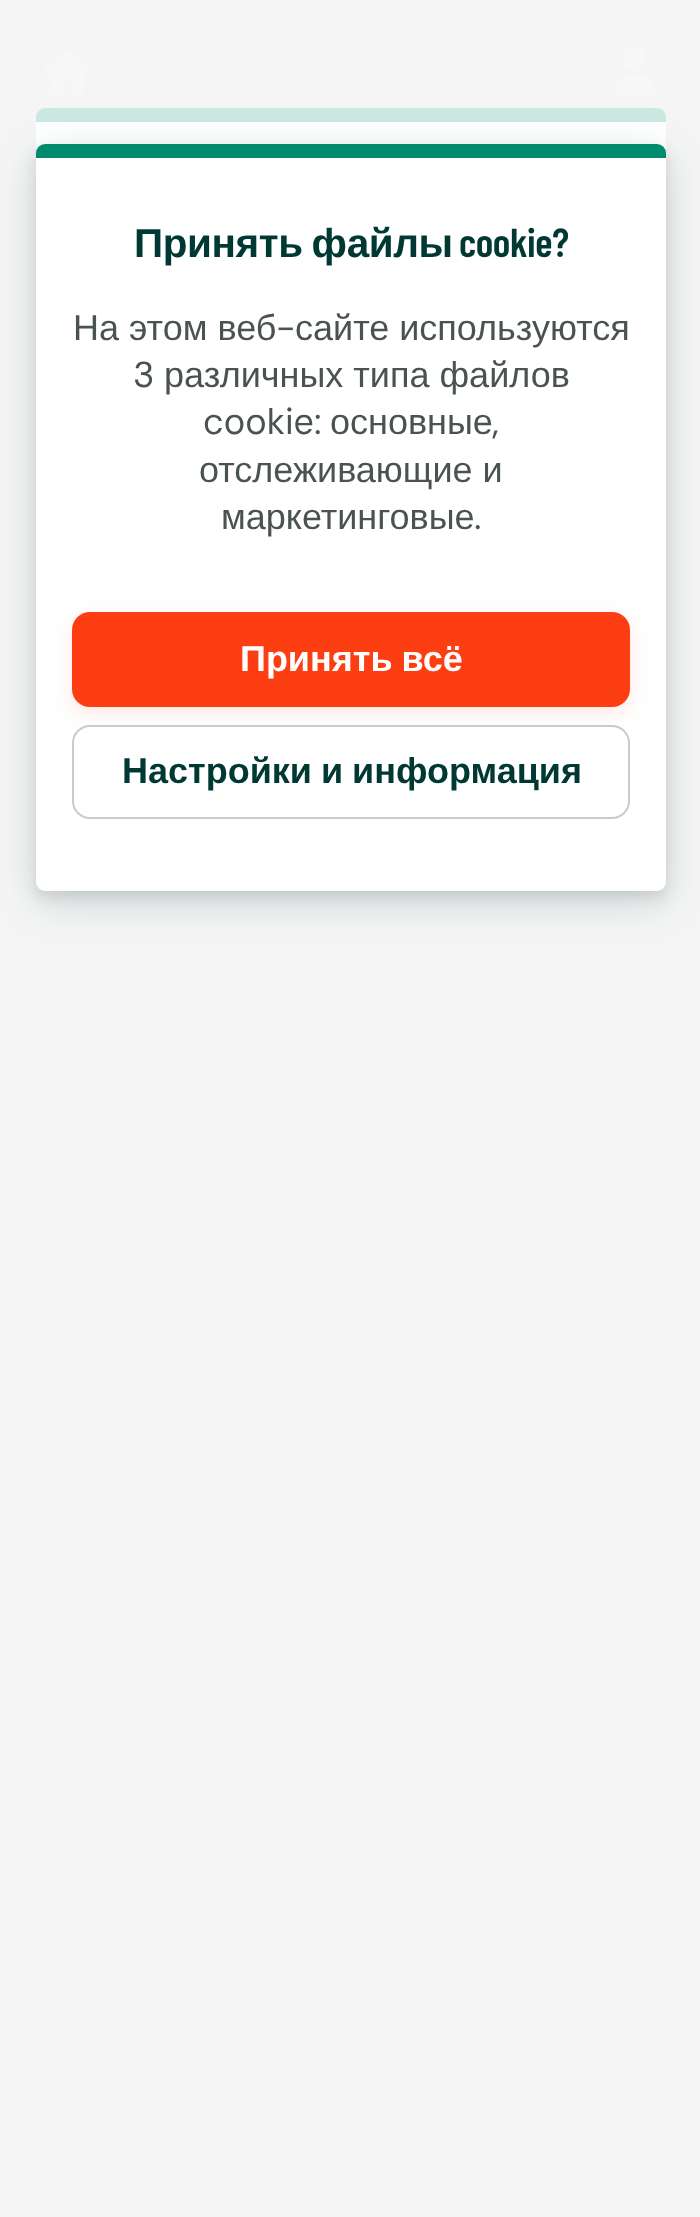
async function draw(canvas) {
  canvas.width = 700
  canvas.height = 2217
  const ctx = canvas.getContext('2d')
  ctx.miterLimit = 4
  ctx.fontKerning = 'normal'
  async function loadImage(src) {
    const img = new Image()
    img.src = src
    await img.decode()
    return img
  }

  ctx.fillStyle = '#f5f5f5'
  ctx.fillRect(0, 0, 700, 2217)
  ctx.drawImage(await loadImage('image0.png'), 43, 50, 48, 45)
  ctx.drawImage(await loadImage('image1.png'), 160, 61, 22, 22)
  ctx.drawImage(await loadImage('image2.png'), 614, 47, 41, 50)
  ctx.fillStyle = '#fff'
  ctx.beginPath()
  ctx.roundRect(36, 108, 630, 630, 9)
  ctx.fill()
  ctx.fillStyle = '#cce8e2'
  ctx.beginPath()
  ctx.roundRect(36, 108, 630, 14, [9, 9, 0, 0])
  ctx.fill()
  ctx.fillStyle = '#0000001a'
  ctx.filter = 'blur(7px)'
  ctx.beginPath()
  ctx.roundRect(36, 151, 630, 747, 9)
  ctx.fill()
  ctx.filter = 'none'
  ctx.fillStyle = '#00383326'
  ctx.filter = 'blur(22.5px)'
  ctx.beginPath()
  ctx.roundRect(36, 155, 630, 747, 9)
  ctx.fill()
  ctx.filter = 'none'
  ctx.fillStyle = '#fff'
  ctx.beginPath()
  ctx.roundRect(36, 144, 630, 747, 9)
  ctx.fill()
  ctx.fillStyle = '#008c6c'
  ctx.beginPath()
  ctx.roundRect(36, 144, 630, 14, [9, 9, 0, 0])
  ctx.fill()
  ctx.letterSpacing = '-0.4px'
  ctx.wordSpacing = '-2px'
  ctx.font = 'bold 40.5px Liberation Sans'
  ctx.fillStyle = '#003833'
  ctx.fillText('Принять файлы', 134, 257)
  ctx.wordSpacing = '0px'
  ctx.font = '600 40.5px Barlow Condensed'
  ctx.fillText('cookie?', 459, 257)
  ctx.letterSpacing = '0px'
  ctx.font = '36px Liberation Sans'
  ctx.fillStyle = '#4b5352'
  ctx.fillText('На этом веб', 73, 340)
  ctx.font = '36px DM Sans'
  ctx.fillText('-', 276, 340)
  ctx.font = '36px Liberation Sans'
  ctx.fillText('сайте используются', 295, 340)
  ctx.font = '36px DM Sans'
  ctx.fillText('3', 133, 387)
  ctx.font = '36px Liberation Sans'
  ctx.fillText('различных типа файлов', 164, 387)
  ctx.font = '36px DM Sans'
  ctx.fillText('cookie:', 203, 434)
  ctx.font = '36px Liberation Sans'
  ctx.fillText('основные', 330, 434)
  ctx.font = '36px DM Sans'
  ctx.fillText(',', 492, 434)
  ctx.font = '36px Liberation Sans'
  ctx.fillText('отслеживающие и', 199, 482)
  ctx.fillText('маркетинговые', 221, 529)
  ctx.font = '36px DM Sans'
  ctx.fillText('.', 474, 529)
  ctx.fillStyle = '#fc3e121f'
  ctx.filter = 'blur(10px)'
  ctx.beginPath()
  ctx.roundRect(72, 619, 558, 94, 18)
  ctx.fill()
  ctx.filter = 'none'
  ctx.fillStyle = '#fc3e12'
  ctx.beginPath()
  ctx.roundRect(72, 612, 558, 95, 18)
  ctx.fill()
  ctx.wordSpacing = '-1px'
  ctx.font = 'bold 36px Liberation Sans'
  ctx.fillStyle = '#fff'
  ctx.fillText('Принять всё', 240, 671)
  ctx.beginPath()
  ctx.roundRect(73, 726, 556, 92, 17)
  ctx.strokeStyle = '#c3cecd'
  ctx.lineWidth = 2
  ctx.stroke()
  ctx.fillStyle = '#003833'
  ctx.fillText('Настройки и информация', 122, 783)
}

draw(document.querySelector('canvas'))
